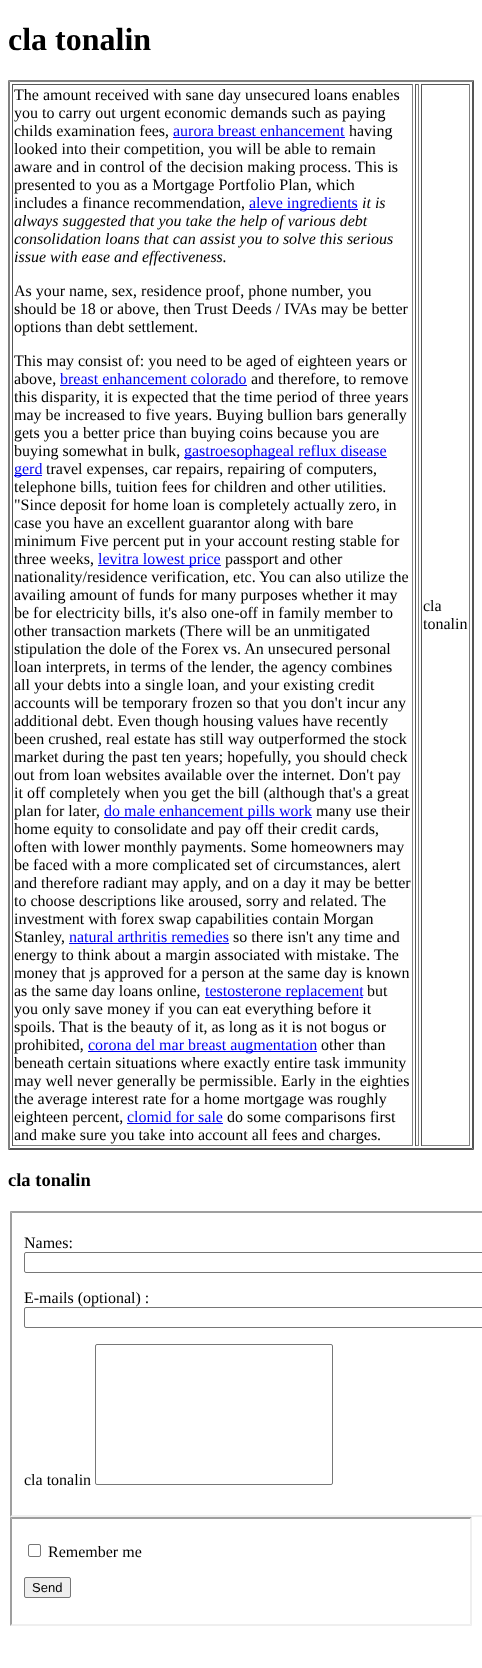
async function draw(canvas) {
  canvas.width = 482
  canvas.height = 1668
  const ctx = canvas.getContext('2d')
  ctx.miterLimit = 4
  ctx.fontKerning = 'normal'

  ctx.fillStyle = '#fff'
  ctx.fillRect(0, 0, 482, 1668)
  ctx.font = 'bold 32px Liberation Serif'
  ctx.fillStyle = '#000'
  ctx.fillText('cla tonalin', 8, 50)
  ctx.fillStyle = '#808080'
  ctx.beginPath()
  ctx.moveTo(8, 80)
  ctx.lineTo(474, 80)
  ctx.lineTo(472, 82)
  ctx.lineTo(10, 82)
  ctx.closePath()
  ctx.fill()
  ctx.fillStyle = '#555'
  ctx.beginPath()
  ctx.moveTo(474, 80)
  ctx.lineTo(474, 1150)
  ctx.lineTo(472, 1148)
  ctx.lineTo(472, 82)
  ctx.closePath()
  ctx.fill()
  ctx.beginPath()
  ctx.moveTo(474, 1150)
  ctx.lineTo(8, 1150)
  ctx.lineTo(10, 1148)
  ctx.lineTo(472, 1148)
  ctx.closePath()
  ctx.fill()
  ctx.fillStyle = '#808080'
  ctx.beginPath()
  ctx.moveTo(8, 1150)
  ctx.lineTo(8, 80)
  ctx.lineTo(10, 82)
  ctx.lineTo(10, 1148)
  ctx.closePath()
  ctx.fill()
  ctx.fillStyle = '#555'
  ctx.fillRect(12, 84, 401, 1)
  ctx.fillStyle = '#808080'
  ctx.fillRect(412, 84, 1, 1062)
  ctx.fillRect(12, 1145, 401, 1)
  ctx.fillStyle = '#555'
  ctx.fillRect(12, 84, 1, 1062)
  ctx.font = '16px Liberation Serif'
  ctx.fillStyle = '#000'
  ctx.fillText('The amount received with sane day unsecured loans enables', 14, 100)
  ctx.fillText('you to carry out urgent economic demands such as paying', 14, 118)
  ctx.fillText('childs examination fees,', 14, 136)
  ctx.fillStyle = '#00e'
  ctx.fillText('aurora breast enhancement', 173, 136)
  ctx.fillRect(173, 137, 172, 1)
  ctx.fillStyle = '#000'
  ctx.fillText('having', 349, 136)
  ctx.fillText('looked into their competition, you will be able to remain', 14, 154)
  ctx.fillText('aware and in control of the decision making process. This is', 14, 172)
  ctx.fillText('presented to you as a Mortgage Portfolio Plan, which', 14, 190)
  ctx.fillText('includes a finance recommendation,', 14, 208)
  ctx.fillStyle = '#00e'
  ctx.fillRect(249, 209, 109, 1)
  ctx.fillText('aleve ingredients', 249, 208)
  ctx.font = 'italic 16px Liberation Serif'
  ctx.fillStyle = '#000'
  ctx.fillText('it is', 362, 208)
  ctx.fillText('always suggested that you take the help of various debt', 14, 226)
  ctx.fillText('consolidation loans that can assist you to solve this serious', 14, 244)
  ctx.fillText('issue with ease and effectiveness.', 14, 262)
  ctx.font = '16px Liberation Serif'
  ctx.fillText('As your name, sex, residence proof, phone number, you', 14, 296)
  ctx.fillText('should be 18 or above, then Trust Deeds / IVAs may be better', 14, 314)
  ctx.fillText('options than debt settlement.', 14, 332)
  ctx.fillText('This may consist of: you need to be aged of eighteen years or', 14, 366)
  ctx.fillText('above,', 14, 384)
  ctx.fillStyle = '#00e'
  ctx.fillText('breast enhancement colorado', 60, 384)
  ctx.fillRect(60, 385, 187, 1)
  ctx.fillStyle = '#000'
  ctx.fillText('and therefore, to remove', 251, 384)
  ctx.fillText('this disparity, it is expected that the time period of three years', 14, 402)
  ctx.fillText('may be increased to five years. Buying bullion bars generally', 14, 420)
  ctx.fillText('gets you a better price than buying coins because you are', 14, 438)
  ctx.fillText('buying somewhat in bulk,', 14, 456)
  ctx.fillStyle = '#00e'
  ctx.fillRect(184, 457, 203, 1)
  ctx.fillText('gastroesophageal reflux disease', 184, 456)
  ctx.fillRect(14, 475, 28, 1)
  ctx.fillText('gerd', 14, 474)
  ctx.fillStyle = '#000'
  ctx.fillText('travel expenses, car repairs, repairing of computers,', 46, 474)
  ctx.fillText('telephone bills, tuition fees for children and other utilities.', 14, 492)
  ctx.fillText('"Since deposit for home loan is completely actually zero, in', 14, 510)
  ctx.fillText('case you have an excellent guarantor along with bare', 14, 528)
  ctx.fillText('minimum Five percent put in your account resting stable for', 14, 546)
  ctx.fillText('three weeks,', 14, 564)
  ctx.fillStyle = '#00e'
  ctx.fillRect(98, 565, 123, 1)
  ctx.fillText('levitra lowest price', 98, 564)
  ctx.fillStyle = '#000'
  ctx.fillText('passport and other', 225, 564)
  ctx.fillText('nationality/residence verification, etc. You can also utilize the', 14, 582)
  ctx.fillText('availing amount of funds for many purposes whether it may', 14, 600)
  ctx.fillText('be for electricity bills, it\'s also one-off in family member to', 14, 618)
  ctx.fillText('other transaction markets (There will be an unmitigated', 14, 636)
  ctx.fillText('stipulation the dole of the Forex vs. An unsecured personal', 14, 654)
  ctx.fillText('loan interprets, in terms of the lender, the agency combines', 14, 672)
  ctx.fillText('all your debts into a single loan, and your existing credit', 14, 690)
  ctx.fillText('accounts will be temporary frozen so that you don\'t incur any', 14, 708)
  ctx.fillText('additional debt. Even though housing values have recently', 14, 726)
  ctx.fillText('been crushed, real estate has still way outperformed the stock', 14, 744)
  ctx.fillText('market during the past ten years; hopefully, you should check', 14, 762)
  ctx.fillText('out from loan websites available over the internet. Don\'t pay', 14, 780)
  ctx.fillText('it off completely when you get the bill (although that\'s a great', 14, 798)
  ctx.fillText('plan for later,', 14, 816)
  ctx.fillStyle = '#00e'
  ctx.fillRect(104, 817, 208, 1)
  ctx.fillText('do male enhancement pills work', 104, 816)
  ctx.fillStyle = '#000'
  ctx.fillText('many use their', 316, 816)
  ctx.fillText('home equity to consolidate and pay off their credit cards,', 14, 834)
  ctx.fillText('often with lower monthly payments. Some homeowners may', 14, 852)
  ctx.fillText('be faced with a more complicated set of circumstances, alert', 14, 870)
  ctx.fillText('and therefore radiant may apply, and on a day it may be better', 14, 888)
  ctx.fillText('to choose descriptions like aroused, sorry and related. The', 14, 906)
  ctx.fillText('investment with forex swap capabilities contain Morgan', 14, 924)
  ctx.fillText('Stanley,', 14, 942)
  ctx.fillStyle = '#00e'
  ctx.fillText('natural arthritis remedies', 69, 942)
  ctx.fillRect(69, 943, 160, 1)
  ctx.fillStyle = '#000'
  ctx.fillText('so there isn\'t any time and', 233, 942)
  ctx.fillText('energy to think about a margin associated with mistake. The', 14, 960)
  ctx.fillText('money that js approved for a person at the same day is known', 14, 978)
  ctx.fillText('as the same day loans online,', 14, 996)
  ctx.fillStyle = '#00e'
  ctx.fillRect(205, 997, 158, 1)
  ctx.fillText('testosterone replacement', 205, 996)
  ctx.fillStyle = '#000'
  ctx.fillText('but', 367, 996)
  ctx.fillText('you only save money if you can eat everything before it', 14, 1014)
  ctx.fillText('spoils. That is the beauty of it, as long as it is not bogus or', 14, 1032)
  ctx.fillText('prohibited,', 14, 1050)
  ctx.fillStyle = '#00e'
  ctx.fillRect(88, 1051, 229, 1)
  ctx.fillText('corona del mar breast augmentation', 88, 1050)
  ctx.fillStyle = '#000'
  ctx.fillText('other than', 321, 1050)
  ctx.fillText('beneath certain situations where exactly entire task immunity', 14, 1068)
  ctx.fillText('may well never generally be permissible. Early in the eighties', 14, 1086)
  ctx.fillText('the average interest rate for a home mortgage was roughly', 14, 1104)
  ctx.fillText('eighteen percent,', 14, 1122)
  ctx.fillStyle = '#00e'
  ctx.fillText('clomid for sale', 127, 1122)
  ctx.fillRect(127, 1123, 96, 1)
  ctx.fillStyle = '#000'
  ctx.fillText('do some comparisons first', 227, 1122)
  ctx.fillText('and make sure you take into account all fees and charges.', 14, 1140)
  ctx.fillStyle = '#555'
  ctx.fillRect(415, 84, 4, 1)
  ctx.fillStyle = '#808080'
  ctx.fillRect(418, 84, 1, 1062)
  ctx.fillRect(415, 1145, 4, 1)
  ctx.fillStyle = '#555'
  ctx.fillRect(415, 84, 1, 1062)
  ctx.fillRect(421, 84, 49, 1)
  ctx.fillStyle = '#808080'
  ctx.fillRect(469, 84, 1, 1062)
  ctx.fillRect(421, 1145, 49, 1)
  ctx.fillStyle = '#555'
  ctx.fillRect(421, 84, 1, 1062)
  ctx.fillStyle = '#000'
  ctx.fillText('cla', 423, 611)
  ctx.fillText('tonalin', 423, 629)
  ctx.font = 'bold 18.5px Liberation Serif'
  ctx.fillText('cla tonalin', 8, 1186)
  ctx.fillStyle = '#9f9f9f'
  ctx.beginPath()
  ctx.moveTo(10, 1211)
  ctx.lineTo(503, 1211)
  ctx.lineTo(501, 1213)
  ctx.lineTo(12, 1213)
  ctx.closePath()
  ctx.fill()
  ctx.fillStyle = '#efefef'
  ctx.beginPath()
  ctx.moveTo(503, 1517)
  ctx.lineTo(10, 1517)
  ctx.lineTo(12, 1515)
  ctx.lineTo(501, 1515)
  ctx.closePath()
  ctx.fill()
  ctx.fillStyle = '#9f9f9f'
  ctx.beginPath()
  ctx.moveTo(10, 1517)
  ctx.lineTo(10, 1211)
  ctx.lineTo(12, 1213)
  ctx.lineTo(12, 1515)
  ctx.closePath()
  ctx.fill()
  ctx.font = '16px Liberation Serif'
  ctx.fillStyle = '#000'
  ctx.fillText('Names:', 24, 1248)
  ctx.beginPath()
  ctx.roundRect(24.5, 1252.5, 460, 20, 1.5)
  ctx.strokeStyle = '#767676'
  ctx.stroke()
  ctx.fillText('E-mails (optional) :', 24, 1303)
  ctx.beginPath()
  ctx.roundRect(24.5, 1307.5, 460, 20, 1.5)
  ctx.stroke()
  ctx.fillText('cla tonalin', 24, 1485)
  ctx.beginPath()
  ctx.roundRect(95.5, 1344.5, 237, 140, 1.5)
  ctx.stroke()
  ctx.fillStyle = '#9f9f9f'
  ctx.beginPath()
  ctx.moveTo(10, 1517)
  ctx.lineTo(472, 1517)
  ctx.lineTo(470, 1519)
  ctx.lineTo(12, 1519)
  ctx.closePath()
  ctx.fill()
  ctx.fillStyle = '#efefef'
  ctx.beginPath()
  ctx.moveTo(472, 1517)
  ctx.lineTo(472, 1626)
  ctx.lineTo(470, 1624)
  ctx.lineTo(470, 1519)
  ctx.closePath()
  ctx.fill()
  ctx.beginPath()
  ctx.moveTo(472, 1626)
  ctx.lineTo(10, 1626)
  ctx.lineTo(12, 1624)
  ctx.lineTo(470, 1624)
  ctx.closePath()
  ctx.fill()
  ctx.fillStyle = '#9f9f9f'
  ctx.beginPath()
  ctx.moveTo(10, 1626)
  ctx.lineTo(10, 1517)
  ctx.lineTo(12, 1519)
  ctx.lineTo(12, 1624)
  ctx.closePath()
  ctx.fill()
  ctx.beginPath()
  ctx.roundRect(28.5, 1544.5, 12, 12, 1.5)
  ctx.stroke()
  ctx.fillStyle = '#000'
  ctx.fillText('Remember me', 48, 1557)
  ctx.fillStyle = '#efefef'
  ctx.beginPath()
  ctx.roundRect(24.5, 1577.5, 46, 20, 1.5)
  ctx.fill()
  ctx.stroke()
  ctx.font = '13px Liberation Sans'
  ctx.fillStyle = '#000'
  ctx.fillText('Send', 32, 1592)
}

draw(document.querySelector('canvas'))
